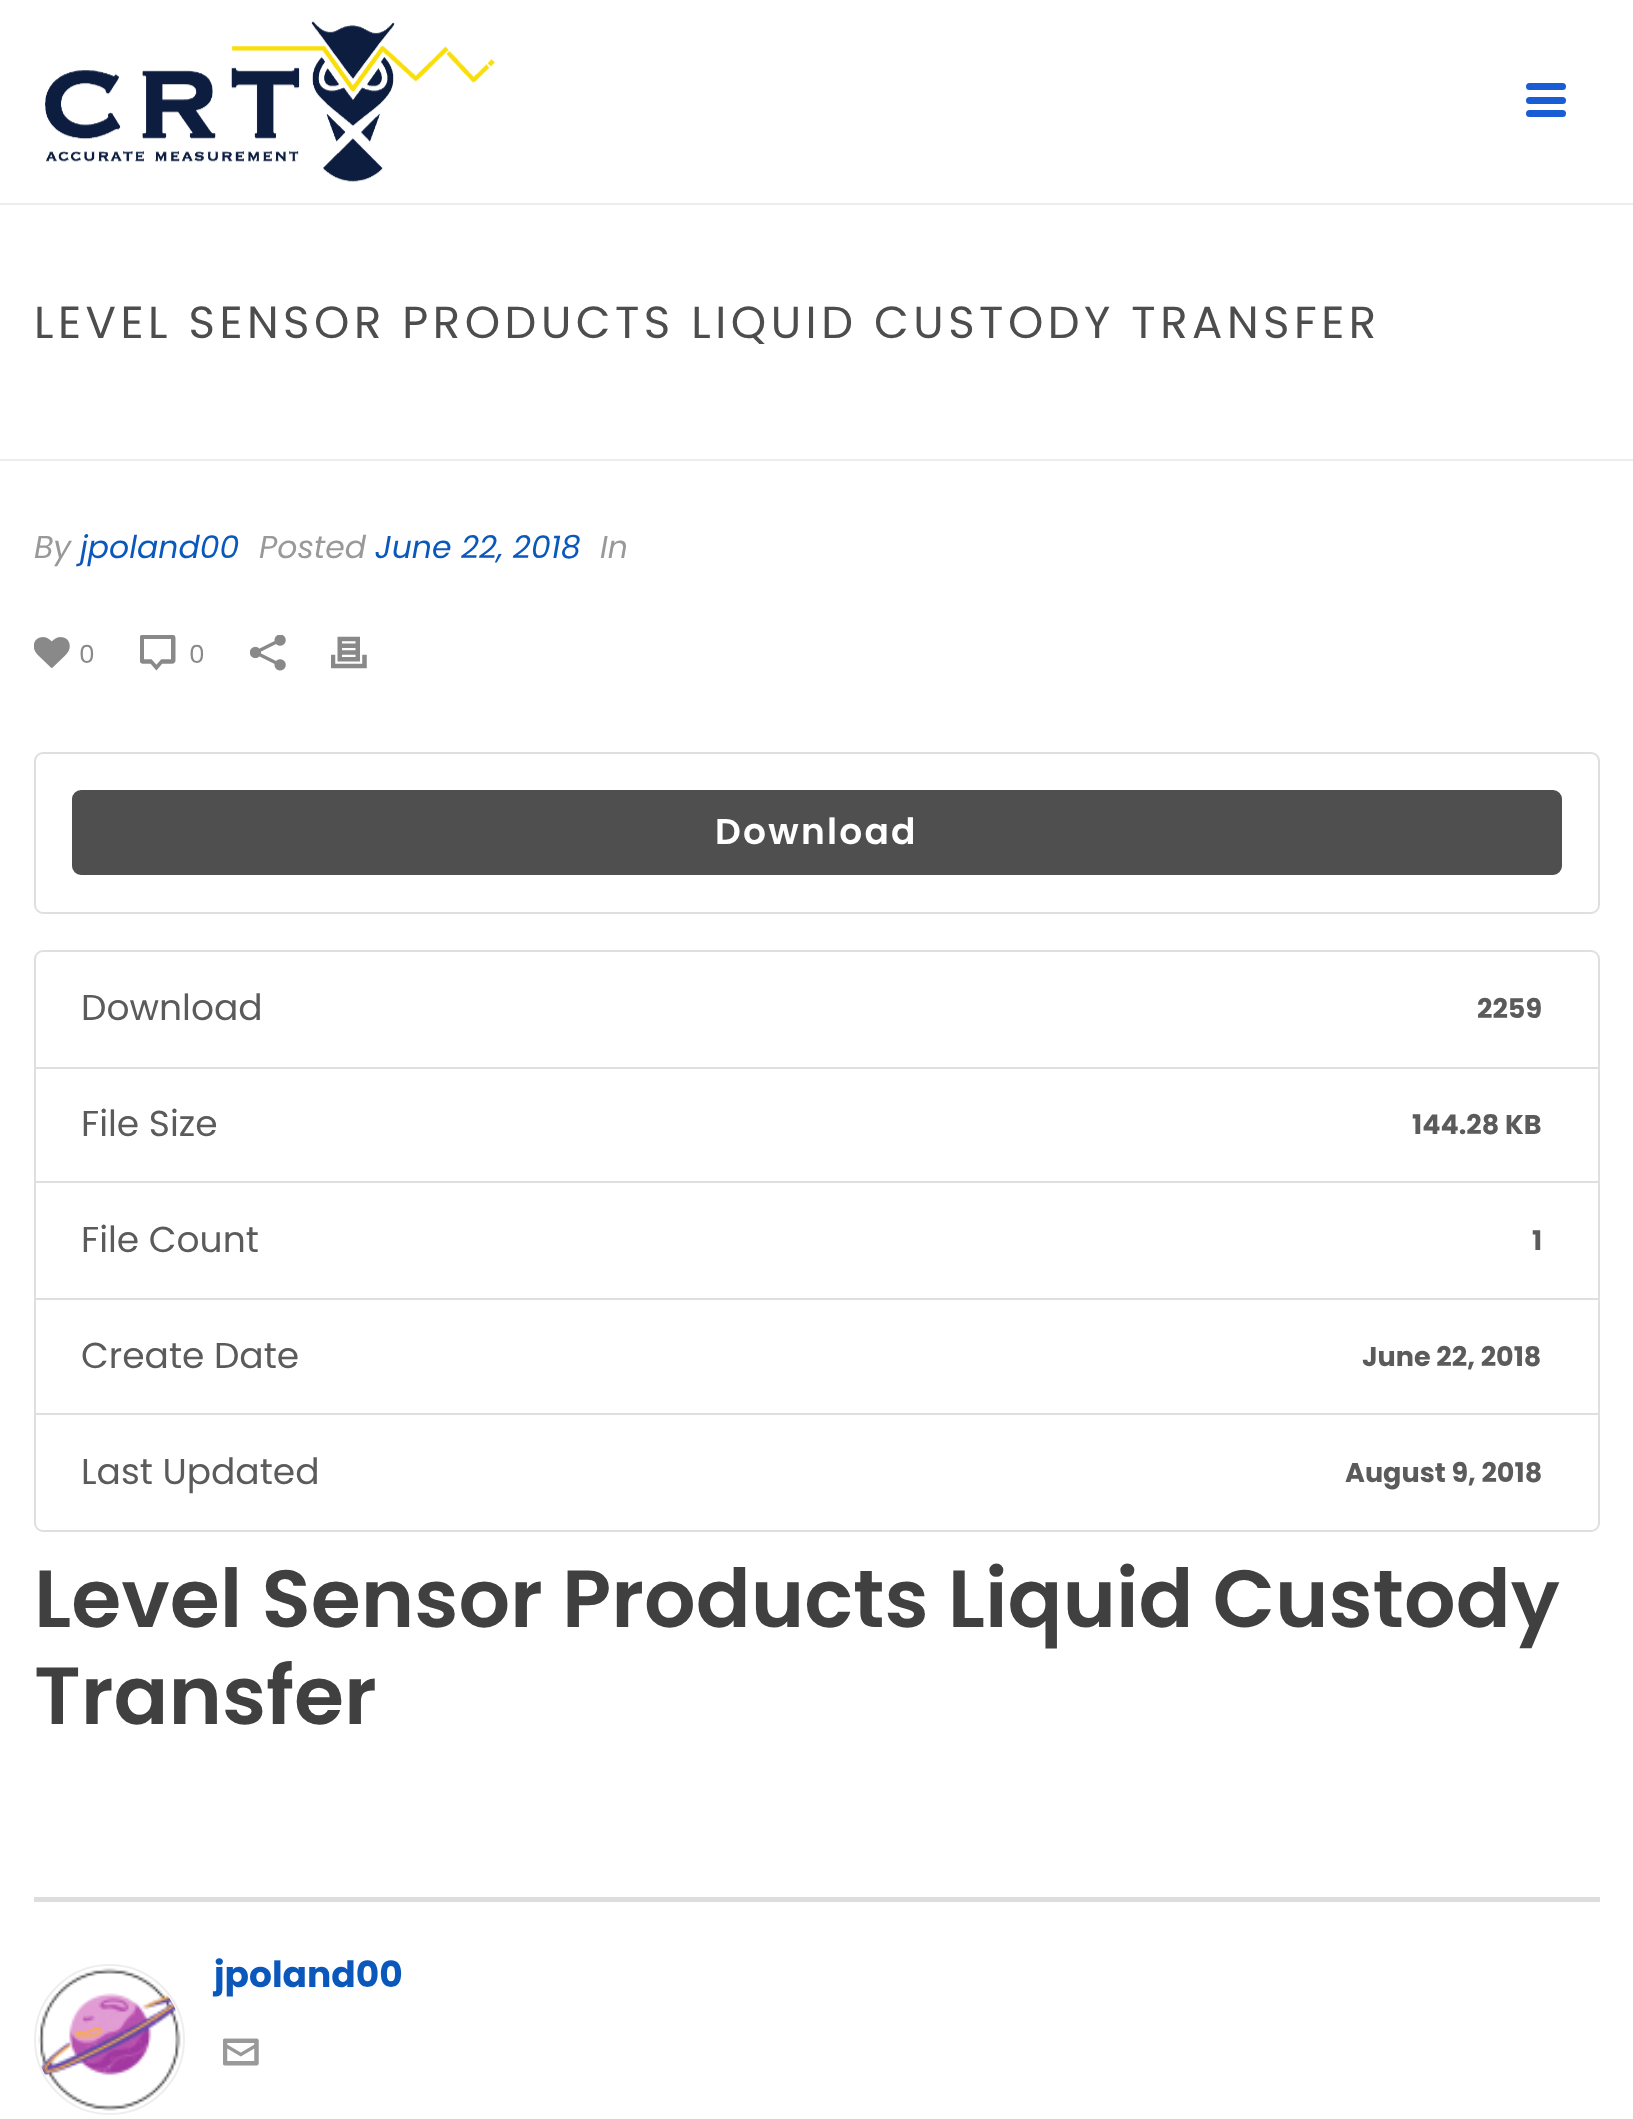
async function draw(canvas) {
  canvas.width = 1633
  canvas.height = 2119
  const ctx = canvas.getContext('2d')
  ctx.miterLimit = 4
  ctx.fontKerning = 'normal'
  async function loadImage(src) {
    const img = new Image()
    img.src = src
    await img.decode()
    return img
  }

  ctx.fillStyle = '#fff'
  ctx.fillRect(0, 0, 1633, 2119)
  ctx.fillStyle = '#ededed'
  ctx.fillRect(0, 459, 1633, 2)
  ctx.fillRect(0, 203, 1633, 2)
  ctx.drawImage(await loadImage('image0.png'), 45, 21, 450, 161)
  ctx.fillStyle = '#185dd3'
  ctx.beginPath()
  ctx.roundRect(1526, 83, 40, 7, 3.5)
  ctx.fill()
  ctx.beginPath()
  ctx.roundRect(1526, 97, 40, 7, 3.5)
  ctx.fill()
  ctx.beginPath()
  ctx.roundRect(1526, 110, 40, 7, 3.5)
  ctx.fill()
  ctx.letterSpacing = '4.5px'
  ctx.font = '45px Poppins'
  ctx.fillStyle = '#4d4d4d'
  ctx.fillText('LEVEL SENSOR PRODUCTS LIQUID CUSTODY TRANSFER', 34, 338)
  ctx.letterSpacing = '0px'
  ctx.font = 'italic 31.5px Poppins'
  ctx.fillStyle = '#999'
  ctx.fillText('By', 34, 558)
  ctx.fillStyle = '#0b58bc'
  ctx.fillText('jpoland00', 80, 558)
  ctx.fillStyle = '#999'
  ctx.fillText('Posted', 259, 558)
  ctx.fillStyle = '#0b58bc'
  ctx.fillText('June 22, 2018', 375, 558)
  ctx.fillStyle = '#999'
  ctx.fillText('In', 600, 558)
  ctx.drawImage(await loadImage('image1.png'), 34, 637, 36, 31)
  ctx.font = '25px Poppins'
  ctx.fillStyle = '#898989'
  ctx.fillText('0', 79, 663)
  ctx.drawImage(await loadImage('image2.png'), 140, 635, 36, 36)
  ctx.fillText('0', 189, 663)
  ctx.drawImage(await loadImage('image3.png'), 250, 635, 36, 36)
  ctx.drawImage(await loadImage('image4.png'), 331, 636, 36, 33)
  ctx.beginPath()
  ctx.roundRect(35, 753, 1564, 160, 8)
  ctx.strokeStyle = '#dfdfdf'
  ctx.lineWidth = 2
  ctx.stroke()
  ctx.fillStyle = '#4f4f4f'
  ctx.beginPath()
  ctx.roundRect(73, 791, 1488, 83, 8)
  ctx.fill()
  ctx.strokeStyle = '#4f4f4f'
  ctx.stroke()
  ctx.letterSpacing = '2.25px'
  ctx.font = '600 36px Poppins'
  ctx.fillStyle = '#fff'
  ctx.fillText('Download', 715, 844)
  ctx.beginPath()
  ctx.roundRect(35, 951, 1564, 117, [8, 8, 0, 0])
  ctx.strokeStyle = '#dfdfdf'
  ctx.stroke()
  ctx.letterSpacing = '0px'
  ctx.font = '36px Poppins'
  ctx.fillStyle = '#5b5b5b'
  ctx.fillText('Download', 81, 1020)
  ctx.font = 'bold 27px Poppins'
  ctx.fillText('2259', 1477, 1018)
  ctx.strokeRect(35, 1068, 1564, 115)
  ctx.font = '36px Poppins'
  ctx.fillText('File Size', 81, 1136)
  ctx.font = 'bold 27px Poppins'
  ctx.fillText('144.28 KB', 1412, 1134)
  ctx.fillStyle = '#fff'
  ctx.fillRect(36, 1183, 1562, 1)
  ctx.strokeRect(35, 1182, 1564, 118)
  ctx.font = '36px Poppins'
  ctx.fillStyle = '#5b5b5b'
  ctx.fillText('File Count', 81, 1252)
  ctx.font = 'bold 27px Poppins'
  ctx.fillText('1', 1532, 1250)
  ctx.fillStyle = '#fff'
  ctx.fillRect(36, 1300, 1562, 1)
  ctx.strokeRect(35, 1299, 1564, 115)
  ctx.font = '36px Poppins'
  ctx.fillStyle = '#5b5b5b'
  ctx.fillText('Create Date', 81, 1368)
  ctx.font = 'bold 27px Poppins'
  ctx.fillText('June 22, 2018', 1362, 1366)
  ctx.fillStyle = '#fff'
  ctx.beginPath()
  ctx.roundRect(35, 1414, 1564, 117, [0, 0, 8, 8])
  ctx.fill()
  ctx.stroke()
  ctx.font = '36px Poppins'
  ctx.fillStyle = '#5b5b5b'
  ctx.fillText('Last Updated', 81, 1484)
  ctx.font = 'bold 27px Poppins'
  ctx.fillText('August 9, 2018', 1345, 1482)
  ctx.font = '600 81px Poppins'
  ctx.fillStyle = '#404040'
  ctx.fillText('Level Sensor Products Liquid Custody', 34, 1627)
  ctx.fillText('Transfer', 34, 1724)
  ctx.fillStyle = '#ddd'
  ctx.fillRect(34, 1897, 1566, 5)
  ctx.beginPath()
  ctx.arc(109.5, 2039.5, 74.5, 0, 2 * Math.PI)
  ctx.strokeStyle = '#eee'
  ctx.stroke()
  ctx.drawImage(await loadImage('image5.png'), 38, 1968, 143, 143)
  ctx.font = 'bold 36px Poppins'
  ctx.fillStyle = '#0b58bc'
  ctx.fillText('jpoland00', 214, 1987)
  ctx.drawImage(await loadImage('image6.png'), 223, 2038, 36, 28)
}

draw(document.querySelector('canvas'))
